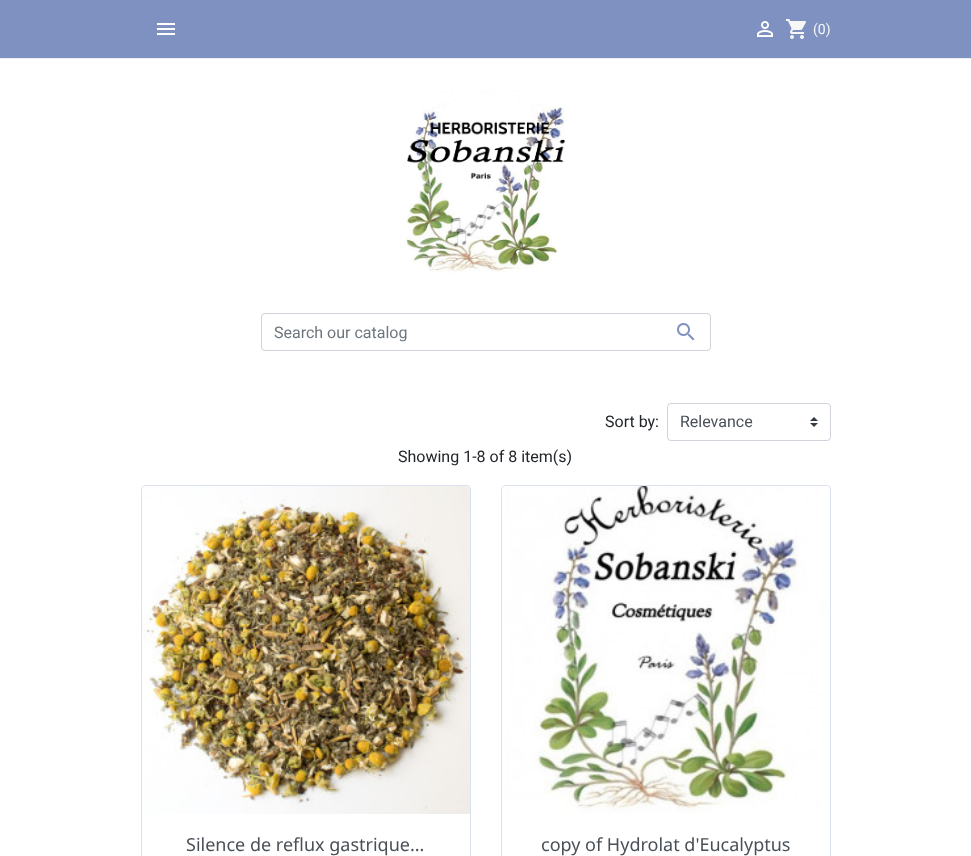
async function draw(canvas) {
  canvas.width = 971
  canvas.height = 856
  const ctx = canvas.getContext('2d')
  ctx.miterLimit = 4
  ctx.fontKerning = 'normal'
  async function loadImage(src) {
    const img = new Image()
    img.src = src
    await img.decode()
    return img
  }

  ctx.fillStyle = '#fff'
  ctx.fillRect(0, 0, 971, 856)
  ctx.fillStyle = '#7e91c1'
  ctx.fillRect(0, 0, 971, 58)
  ctx.fillStyle = '#f1f1f1'
  ctx.fillRect(0, 58, 971, 1)
  ctx.drawImage(await loadImage('image0.png'), 157, 23, 18, 12)
  ctx.drawImage(await loadImage('image1.png'), 757, 21, 16, 16)
  ctx.drawImage(await loadImage('image2.png'), 786, 19, 20, 20)
  ctx.font = '14px Roboto'
  ctx.fillStyle = '#f7f7f7'
  ctx.fillText('(0)', 813, 34)
  ctx.drawImage(await loadImage('image3.png'), 403, 89, 163, 184)
  ctx.beginPath()
  ctx.roundRect(261.5, 313.5, 449, 37, 3.5)
  ctx.strokeStyle = '#ced4da'
  ctx.stroke()
  ctx.font = '16px Roboto'
  ctx.fillStyle = '#6c757d'
  ctx.fillText('Search our catalog', 274, 338)
  ctx.drawImage(await loadImage('image4.png'), 677, 323, 18, 18)
  ctx.fillStyle = '#212529'
  ctx.fillText('Sort by:', 605, 427)
  ctx.drawImage(await loadImage('image5.png'), 810, 417, 8, 10)
  ctx.beginPath()
  ctx.roundRect(667.5, 403.5, 163, 37, 3.5)
  ctx.stroke()
  ctx.fillStyle = '#495057'
  ctx.fillText('Relevance', 680, 427)
  ctx.fillStyle = '#212529'
  ctx.fillText('Showing 1-8 of 8 item(s)', 398, 462)
  ctx.beginPath()
  ctx.roundRect(141.5, 485.5, 329, 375, 3.5)
  ctx.strokeStyle = '#dce1ee'
  ctx.stroke()
  ctx.drawImage(await loadImage('image6.png'), 142, 486, 328, 328)
  ctx.font = '18px Noto Sans'
  ctx.fillStyle = '#495057'
  ctx.fillText('Silence de reflux gastrique...', 186, 851)
  ctx.beginPath()
  ctx.roundRect(501.5, 485.5, 329, 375, 3.5)
  ctx.stroke()
  ctx.drawImage(await loadImage('image7.png'), 502, 486, 328, 328)
  ctx.fillText('copy of Hydrolat d\'Eucalyptus', 541, 851)
}

draw(document.querySelector('canvas'))
